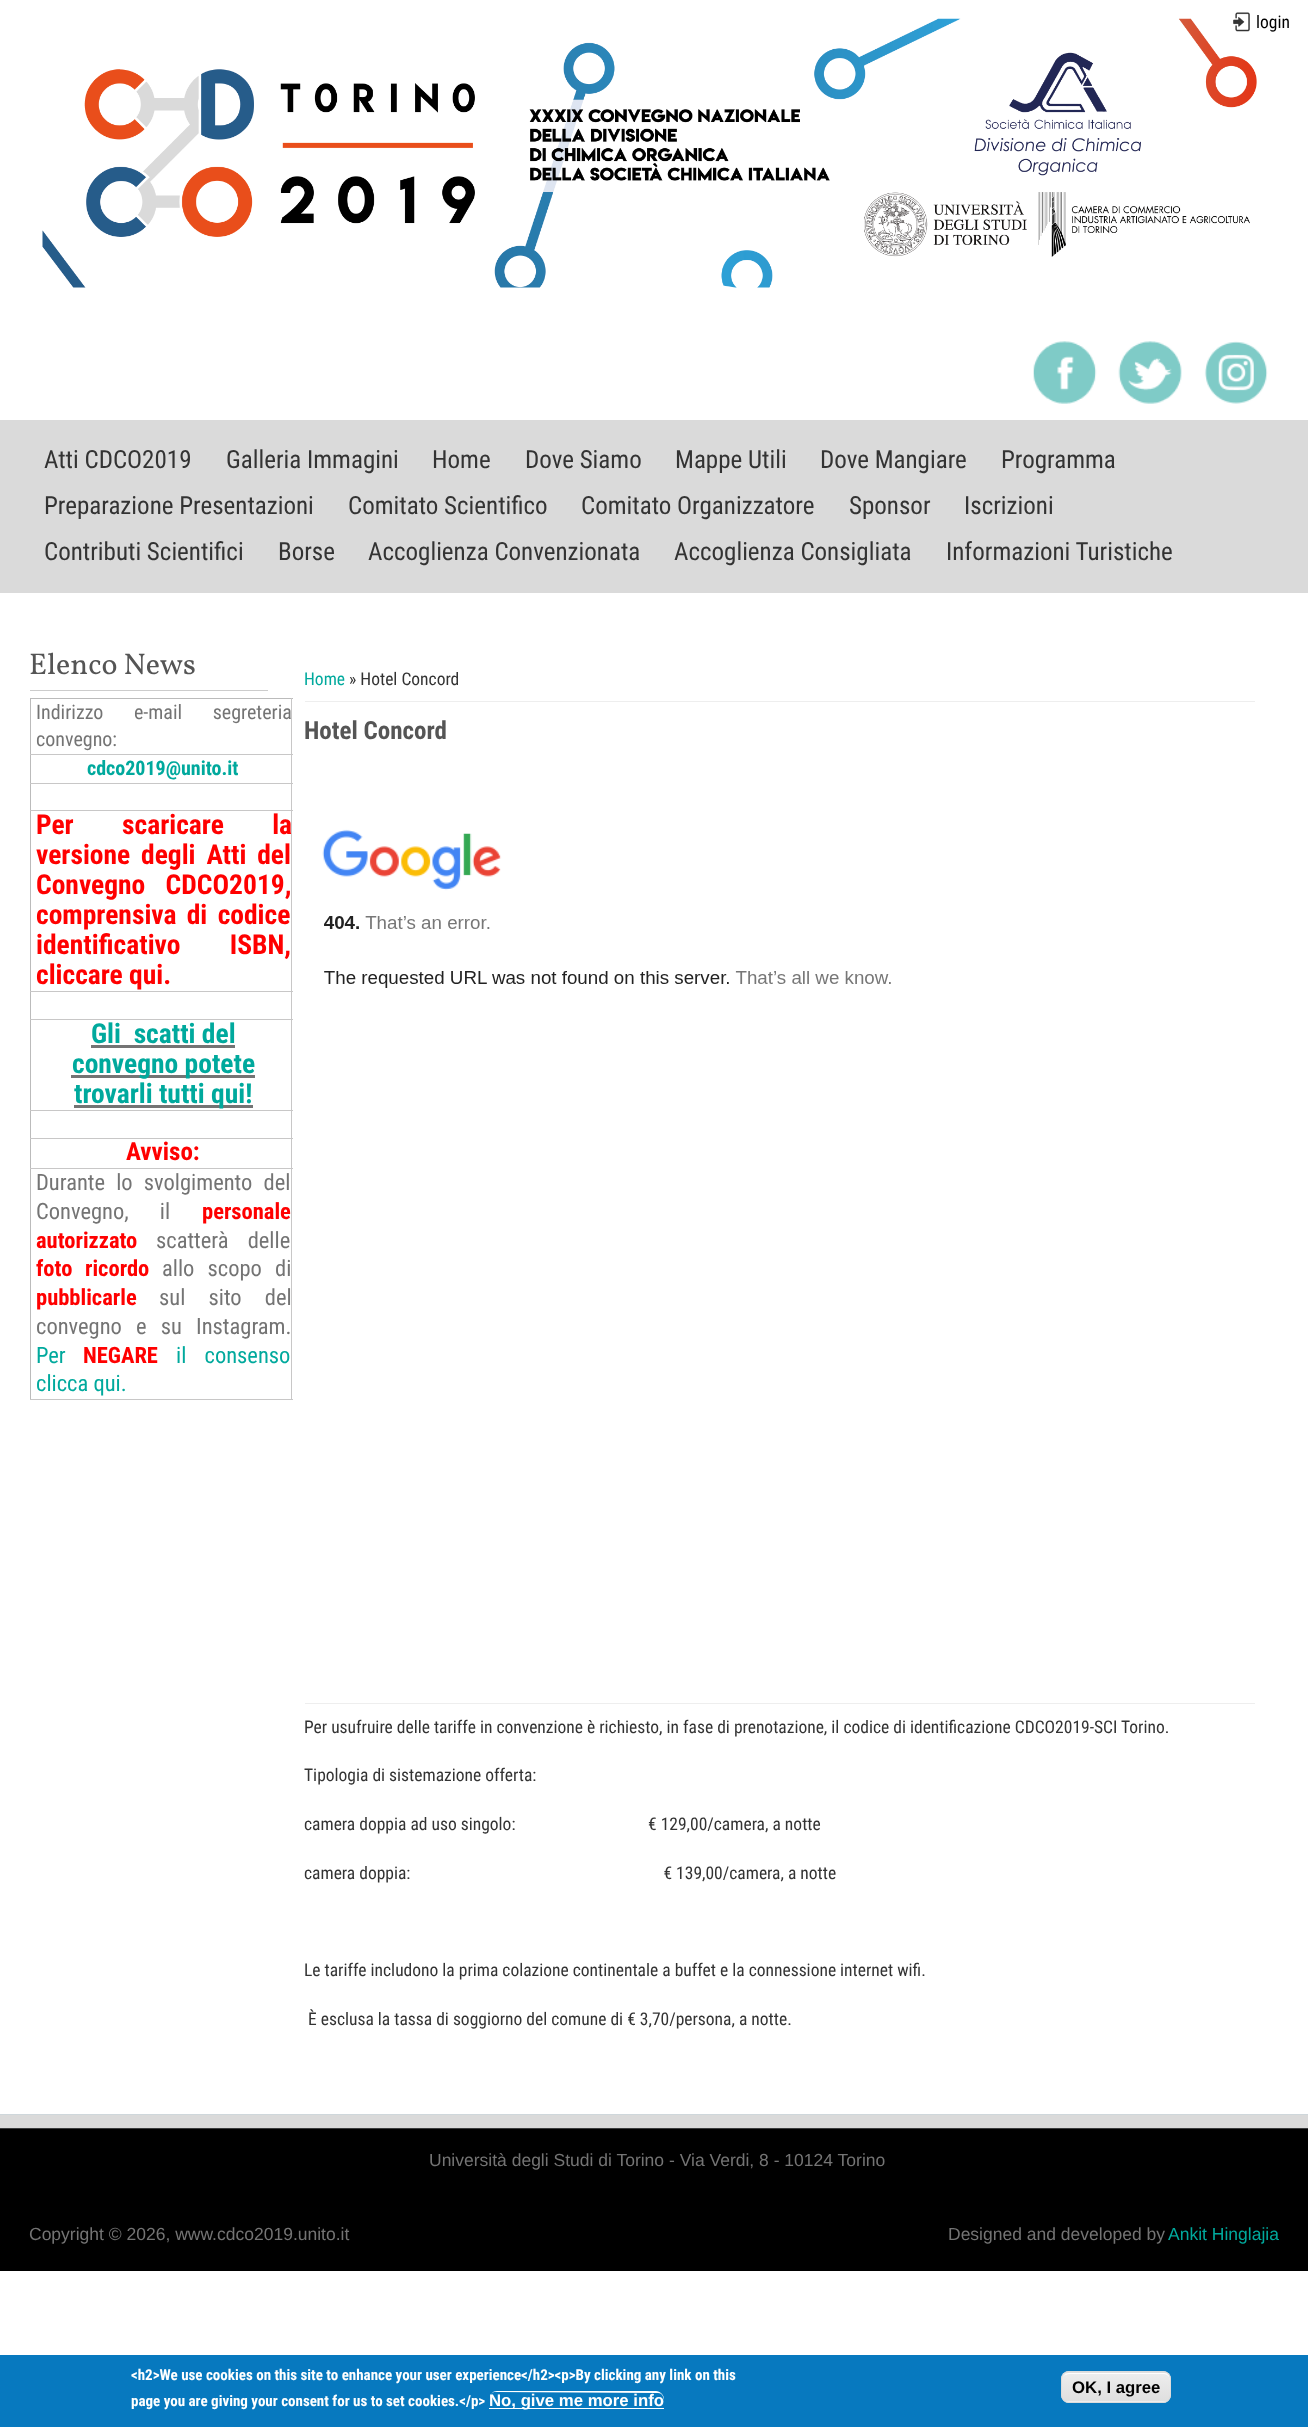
async function draw(canvas) {
  canvas.width = 1308
  canvas.height = 2427
  const ctx = canvas.getContext('2d')
  ctx.miterLimit = 4
  ctx.fontKerning = 'normal'
  async function loadImage(src) {
    const img = new Image()
    img.src = src
    await img.decode()
    return img
  }
  let gradient

  ctx.fillStyle = '#fff'
  ctx.fillRect(0, 0, 1308, 2427)
  ctx.drawImage(await loadImage('image2.png'), 42, 18, 1215, 270)
  ctx.drawImage(await loadImage('image0.png'), 1233, 12, 17, 20)
  ctx.font = '17.5px Roboto Condensed'
  ctx.fillStyle = '#000'
  ctx.fillText('login', 1256, 28)
  ctx.fillStyle = '#ccc'
  ctx.fillRect(30, 690, 238, 1)
  ctx.font = '30px Vollkorn'
  ctx.fillStyle = '#555'
  ctx.fillText('Elenco News', 29, 674)
  ctx.fillStyle = '#bbb'
  ctx.fillRect(30, 698, 263, 1)
  ctx.fillRect(30, 698, 1, 702)
  ctx.fillStyle = '#c8c7c7'
  ctx.fillRect(291, 698, 1, 702)
  ctx.fillRect(30, 754, 263, 1)
  ctx.wordSpacing = '26px'
  ctx.font = '20px Roboto Condensed'
  ctx.fillStyle = '#747474'
  ctx.fillText('Indirizzo e-mail segreteria', 36, 719)
  ctx.wordSpacing = '0px'
  ctx.fillText('convegno:', 36, 746)
  ctx.fillStyle = '#c8c7c7'
  ctx.fillRect(30, 783, 263, 1)
  ctx.font = 'bold 20px Roboto Condensed'
  ctx.fillStyle = '#00a99d'
  ctx.fillText('cdco2019@unito.it', 87, 775)
  ctx.fillStyle = '#c8c7c7'
  ctx.fillRect(30, 810, 263, 1)
  ctx.fillRect(30, 991, 263, 1)
  ctx.wordSpacing = '42px'
  ctx.font = 'bold 27.5px Roboto Condensed'
  ctx.fillStyle = '#f00'
  ctx.fillText('Per scaricare la', 36, 834)
  ctx.wordSpacing = '4.5px'
  ctx.fillText('versione degli Atti del', 36, 864)
  ctx.wordSpacing = '14px'
  ctx.fillText('Convegno CDCO2019,', 36, 894)
  ctx.wordSpacing = '4px'
  ctx.fillText('comprensiva di codice', 36, 924)
  ctx.wordSpacing = '43px'
  ctx.fillText('identificativo ISBN,', 36, 954)
  ctx.wordSpacing = '0px'
  ctx.fillText('cliccare qui.', 36, 984)
  ctx.fillStyle = '#c8c7c7'
  ctx.fillRect(30, 1019, 263, 1)
  ctx.fillRect(30, 1110, 263, 1)
  ctx.fillStyle = '#00a99d'
  ctx.fillText('Gli  scatti del', 91, 1043)
  ctx.fillStyle = '#747474'
  ctx.fillRect(91, 1045, 144, 3)
  ctx.fillRect(71, 1075, 184, 3)
  ctx.fillStyle = '#00a99d'
  ctx.fillText('convegno potete', 72, 1073)
  ctx.fillStyle = '#747474'
  ctx.fillRect(74, 1105, 179, 3)
  ctx.fillStyle = '#00a99d'
  ctx.fillText('trovarli tutti qui!', 74, 1103)
  ctx.fillStyle = '#c8c7c7'
  ctx.fillRect(30, 1138, 263, 1)
  ctx.fillRect(30, 1168, 263, 1)
  ctx.font = 'bold 25px Roboto Condensed'
  ctx.fillStyle = '#f00'
  ctx.fillText('Avviso:', 126, 1160)
  ctx.fillStyle = '#c8c7c7'
  ctx.fillRect(30, 1399, 263, 1)
  ctx.wordSpacing = '6px'
  ctx.font = '22.5px Roboto Condensed'
  ctx.fillStyle = '#747474'
  ctx.fillText('Durante lo svolgimento del', 36, 1190)
  ctx.wordSpacing = '26px'
  ctx.fillText('Convegno, il', 36, 1219)
  ctx.wordSpacing = '0px'
  ctx.font = 'bold 22.5px Roboto Condensed'
  ctx.fillStyle = '#f00'
  ctx.fillText('personale', 202, 1219)
  ctx.fillText('autorizzato', 36, 1248)
  ctx.wordSpacing = '14px'
  ctx.font = '22.5px Roboto Condensed'
  ctx.fillStyle = '#747474'
  ctx.fillText('scatterà delle', 156, 1248)
  ctx.wordSpacing = '0px'
  ctx.font = 'bold 22.5px Roboto Condensed'
  ctx.fillStyle = '#f00'
  ctx.fillText('foto', 36, 1276)
  ctx.fillText('ricordo', 85, 1276)
  ctx.wordSpacing = '8px'
  ctx.font = '22.5px Roboto Condensed'
  ctx.fillStyle = '#747474'
  ctx.fillText('allo scopo di', 162, 1276)
  ctx.wordSpacing = '0px'
  ctx.font = 'bold 22.5px Roboto Condensed'
  ctx.fillStyle = '#f00'
  ctx.fillText('pubblicarle', 36, 1305)
  ctx.wordSpacing = '18px'
  ctx.font = '22.5px Roboto Condensed'
  ctx.fillStyle = '#747474'
  ctx.fillText('sul sito del', 159, 1305)
  ctx.wordSpacing = '9px'
  ctx.fillText('convegno e su Instagram.', 36, 1334)
  ctx.wordSpacing = '0px'
  ctx.fillStyle = '#00a99d'
  ctx.fillText('Per', 36, 1363)
  ctx.font = 'bold 22.5px Roboto Condensed'
  ctx.fillStyle = '#f00'
  ctx.fillText('NEGARE', 83, 1363)
  ctx.wordSpacing = '13px'
  ctx.font = '22.5px Roboto Condensed'
  ctx.fillStyle = '#00a99d'
  ctx.fillText('il consenso', 176, 1363)
  ctx.wordSpacing = '0px'
  ctx.fillText('clicca qui.', 36, 1391)
  ctx.fillStyle = '#eee'
  ctx.fillRect(305, 701, 950, 1)
  ctx.font = '17.5px Roboto Condensed'
  ctx.fillStyle = '#00a99d'
  ctx.fillText('Home', 304, 685)
  ctx.fillStyle = '#333'
  ctx.fillText('» Hotel Concord', 349, 685)
  ctx.font = 'bold 25px Roboto Condensed'
  ctx.fillStyle = '#555'
  ctx.fillText('Hotel Concord', 304, 739)
  ctx.drawImage(await loadImage('image1.png'), 322, 829, 569, 159)
  ctx.fillStyle = '#eee'
  ctx.fillRect(305, 1703, 950, 1)
  ctx.font = '17.5px Roboto Condensed'
  ctx.fillStyle = '#333'
  ctx.fillText('Per usufruire delle tariffe in convenzione è richiesto, in fase di prenotazione, il codice di identificazione CDCO2019-SCI Torino.', 304, 1733)
  ctx.fillText('Tipologia di sistemazione offerta:', 304, 1781)
  ctx.fillText('camera doppia ad uso singolo:                                 € 129,00/camera, a notte', 304, 1830)
  ctx.fillText('camera doppia:                                                               € 139,00/camera, a notte', 304, 1879)
  ctx.fillText('Le tariffe includono la prima colazione continentale a buffet e la connessione internet wifi.', 304, 1976)
  ctx.fillText('È esclusa la tassa di soggiorno del comune di € 3,70/persona, a notte.', 308, 2025)
  ctx.drawImage(await loadImage('image3.png'), 1033, 341, 64, 63)
  ctx.drawImage(await loadImage('image4.png'), 1118, 341, 64, 63)
  ctx.drawImage(await loadImage('image5.png'), 1204, 341, 64, 63)
  ctx.fillStyle = '#dadada'
  ctx.fillRect(0, 420, 1308, 173)
  ctx.font = '25px Roboto Condensed'
  ctx.fillStyle = '#333'
  ctx.fillText('Atti CDCO2019', 44, 468)
  ctx.fillText('Galleria Immagini', 226, 468)
  ctx.fillText('Home', 432, 468)
  ctx.fillText('Dove Siamo', 525, 468)
  ctx.fillText('Mappe Utili', 675, 468)
  ctx.fillText('Dove Mangiare', 820, 468)
  ctx.fillText('Programma', 1001, 468)
  ctx.fillText('Preparazione Presentazioni', 44, 514)
  ctx.fillText('Comitato Scientifico', 348, 514)
  ctx.fillText('Comitato Organizzatore', 581, 514)
  ctx.fillText('Sponsor', 849, 514)
  ctx.fillText('Iscrizioni', 964, 514)
  ctx.fillText('Contributi Scientifici', 44, 560)
  ctx.fillText('Borse', 278, 560)
  ctx.fillText('Accoglienza Convenzionata', 368, 560)
  ctx.fillText('Accoglienza Consigliata', 674, 560)
  ctx.fillText('Informazioni Turistiche', 946, 560)
  ctx.fillStyle = '#dadada'
  ctx.fillRect(0, 2115, 1308, 13)
  ctx.fillStyle = '#cfd7db'
  ctx.fillRect(0, 2114, 1308, 1)
  ctx.fillStyle = '#000'
  ctx.fillRect(0, 2129, 1308, 142)
  ctx.fillStyle = '#3b3c3d'
  ctx.fillRect(0, 2128, 1308, 1)
  ctx.font = '17.5px Liberation Sans'
  ctx.fillStyle = '#747474'
  ctx.fillText('Università degli Studi di Torino - Via Verdi, 8 - 10124 Torino', 429, 2166)
  ctx.fillText('Copyright © 2026, www.cdco2019.unito.it', 29, 2240)
  ctx.fillText('Designed and developed by', 948, 2240)
  ctx.fillStyle = '#00a99d'
  ctx.fillText('Ankit Hinglajia', 1168, 2240)
  ctx.fillStyle = '#0779bf'
  ctx.fillRect(0, 2355, 1308, 72)
  ctx.font = 'bold 15px Roboto Condensed'
  ctx.fillStyle = '#fff'
  ctx.fillText('<h2>We use cookies on this site to enhance your user experience<\/h2><p>By clicking any link on this', 131, 2380)
  ctx.fillText('page you are giving your consent for us to set cookies.<\/p>', 131, 2406)
  ctx.beginPath()
  ctx.moveTo(496, 2392)
  ctx.lineTo(658, 2393)
  ctx.bezierCurveTo(662, 2393, 663, 2396, 664, 2400)
  ctx.lineTo(664, 2399)
  ctx.bezierCurveTo(664, 2395, 660, 2391, 656, 2391)
  ctx.lineTo(497, 2391)
  ctx.bezierCurveTo(493, 2391, 490, 2394, 489, 2397)
  ctx.bezierCurveTo(490, 2394, 492, 2392, 496, 2392)
  ctx.closePath()
  ctx.fill()
  ctx.fillRect(489, 2408, 175, 1)
  ctx.font = 'bold 16.75px Liberation Sans'
  ctx.fillText('No, give me more info', 489, 2406)
  ctx.save()
  ctx.beginPath()
  ctx.roundRect(1061, 2371, 110, 32, 8)
  ctx.clip()
  gradient = ctx.createLinearGradient(1116, 2344, 1116, 2373)
  gradient.addColorStop(0.05, '#ededed')
  gradient.addColorStop(1, '#dfdfdf')
  ctx.fillStyle = gradient
  ctx.fillRect(1061, 2371, 110, 2)
  gradient = ctx.createLinearGradient(1116, 2373, 1116, 2401)
  gradient.addColorStop(0.05, '#ededed')
  gradient.addColorStop(1, '#dfdfdf')
  ctx.fillStyle = gradient
  ctx.fillRect(1061, 2373, 110, 28)
  gradient = ctx.createLinearGradient(1116, 2401, 1116, 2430)
  gradient.addColorStop(0.05, '#ededed')
  gradient.addColorStop(1, '#dfdfdf')
  ctx.fillStyle = gradient
  ctx.fillRect(1061, 2401, 110, 2)
  ctx.restore()
  ctx.beginPath()
  ctx.moveTo(1069, 2374)
  ctx.lineTo(1164, 2374)
  ctx.bezierCurveTo(1167, 2374, 1170, 2377, 1170, 2380)
  ctx.lineTo(1170, 2379)
  ctx.bezierCurveTo(1170, 2376, 1167, 2373, 1164, 2373)
  ctx.lineTo(1069, 2373)
  ctx.bezierCurveTo(1067, 2373, 1065, 2374, 1064, 2376)
  ctx.bezierCurveTo(1065, 2375, 1067, 2374, 1069, 2374)
  ctx.closePath()
  ctx.fill()
  ctx.beginPath()
  ctx.roundRect(1061.5, 2371.5, 109, 31, 7.5)
  ctx.strokeStyle = '#dcdcdc'
  ctx.stroke()
  ctx.fillStyle = '#000'
  ctx.fillText('OK, I agree', 1072, 2393)
}

draw(document.querySelector('canvas'))
